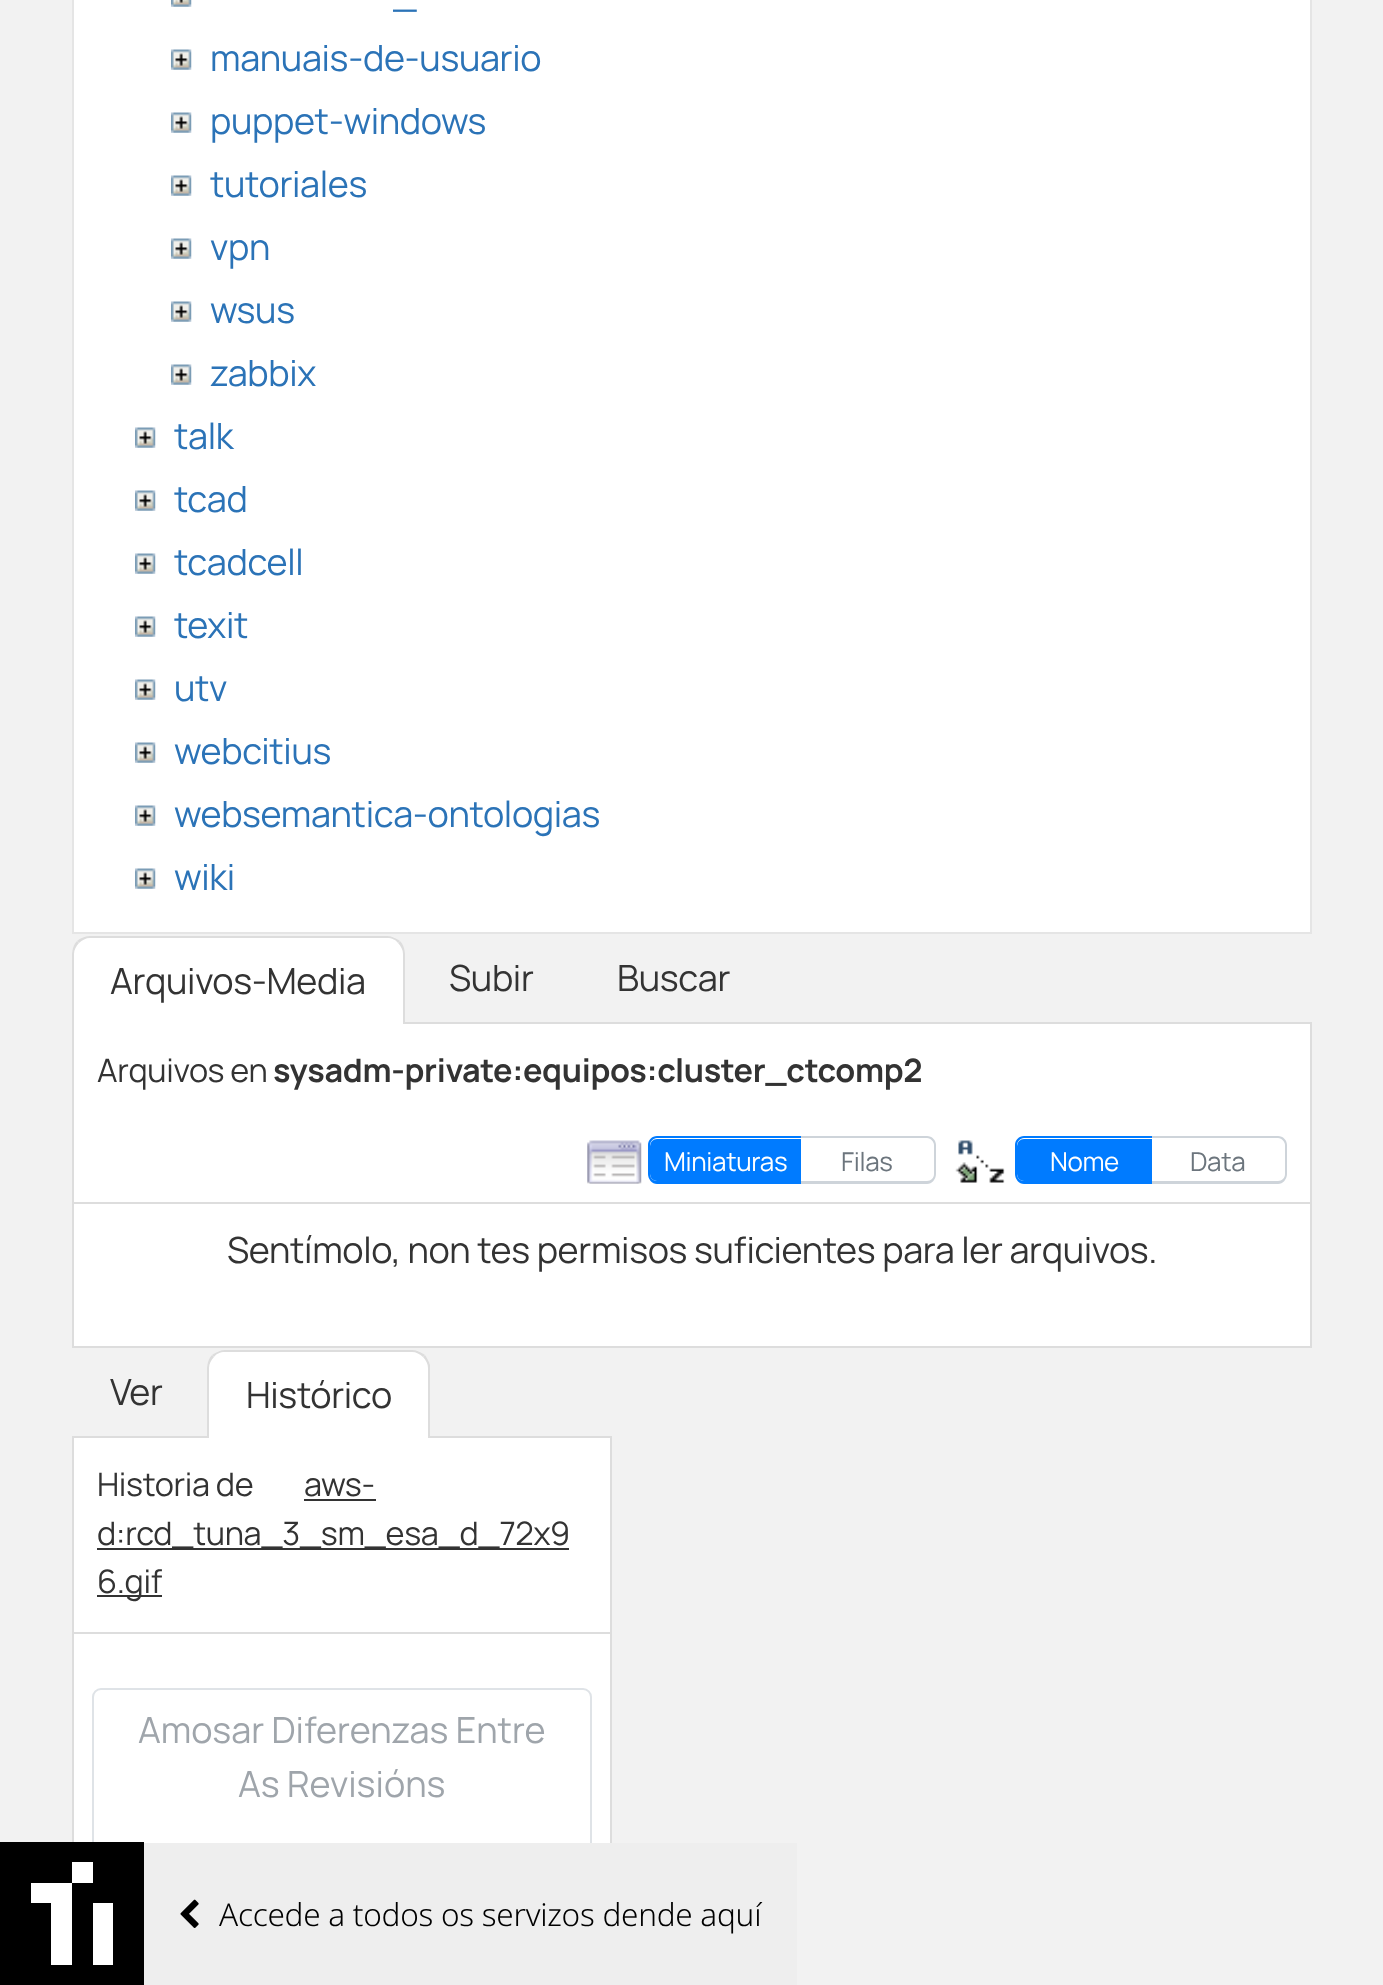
async function draw(canvas) {
  canvas.width = 1383
  canvas.height = 1985
  const ctx = canvas.getContext('2d')
  ctx.miterLimit = 4
  ctx.fontKerning = 'normal'
  async function loadImage(src) {
    const img = new Image()
    img.src = src
    await img.decode()
    return img
  }

  ctx.fillStyle = '#f2f2f2'
  ctx.fillRect(0, 0, 1383, 1985)
  ctx.fillStyle = '#fff'
  ctx.fillRect(74, 0, 1236, 932)
  ctx.fillStyle = '#e5e5e5'
  ctx.fillRect(1310, 0, 2, 934)
  ctx.fillRect(72, 932, 1240, 2)
  ctx.fillRect(72, 0, 2, 934)
  ctx.drawImage(await loadImage('image0.png'), 171, 0, 21, 7)
  ctx.letterSpacing = '-0.35px'
  ctx.font = '36px Manrope'
  ctx.fillStyle = '#2b73b7'
  ctx.fillText('_', 393, 8)
  ctx.drawImage(await loadImage('image1.png'), 171, 49, 21, 21)
  ctx.fillText('manuais-de-usuario', 210, 71)
  ctx.drawImage(await loadImage('image1.png'), 171, 112, 21, 21)
  ctx.fillText('puppet-windows', 210, 134)
  ctx.drawImage(await loadImage('image1.png'), 171, 175, 21, 21)
  ctx.fillText('tutoriales', 210, 197)
  ctx.drawImage(await loadImage('image1.png'), 171, 238, 21, 21)
  ctx.fillText('vpn', 210, 260)
  ctx.drawImage(await loadImage('image2.png'), 171, 301, 21, 21)
  ctx.fillText('wsus', 210, 323)
  ctx.drawImage(await loadImage('image1.png'), 171, 364, 21, 21)
  ctx.fillText('zabbix', 210, 386)
  ctx.drawImage(await loadImage('image1.png'), 135, 427, 21, 21)
  ctx.fillText('talk', 174, 449)
  ctx.drawImage(await loadImage('image1.png'), 135, 490, 21, 21)
  ctx.fillText('tcad', 174, 512)
  ctx.drawImage(await loadImage('image1.png'), 135, 553, 21, 21)
  ctx.fillText('tcadcell', 174, 575)
  ctx.drawImage(await loadImage('image1.png'), 135, 616, 21, 21)
  ctx.fillText('texit', 174, 638)
  ctx.drawImage(await loadImage('image2.png'), 135, 679, 21, 21)
  ctx.fillText('utv', 174, 701)
  ctx.drawImage(await loadImage('image1.png'), 135, 742, 21, 21)
  ctx.fillText('webcitius', 174, 764)
  ctx.drawImage(await loadImage('image2.png'), 135, 805, 21, 21)
  ctx.fillText('websemantica-ontologias', 174, 827)
  ctx.drawImage(await loadImage('image1.png'), 135, 868, 21, 21)
  ctx.fillText('wiki', 174, 890)
  ctx.fillStyle = '#fff'
  ctx.beginPath()
  ctx.rect(73, 1023, 1238, 180)
  ctx.fill()
  ctx.strokeStyle = '#ddd'
  ctx.lineWidth = 2
  ctx.stroke()
  ctx.beginPath()
  ctx.roundRect(72, 936, 333, 88, [18, 18, 0, 0])
  ctx.fill()
  ctx.fillStyle = '#ddd'
  ctx.beginPath()
  ctx.moveTo(90, 936)
  ctx.bezierCurveTo(85, 936, 80, 938, 77, 941)
  ctx.lineTo(79, 943)
  ctx.bezierCurveTo(82, 940, 86, 938, 90, 938)
  ctx.lineTo(387, 938)
  ctx.bezierCurveTo(392, 938, 396, 940, 398, 943)
  ctx.lineTo(400, 941)
  ctx.bezierCurveTo(396, 938, 392, 936, 387, 936)
  ctx.closePath()
  ctx.fill()
  ctx.save()
  ctx.beginPath()
  ctx.rect(72, 934, 1240, 90)
  ctx.clip()
  ctx.beginPath()
  ctx.moveTo(405, 1026)
  ctx.lineTo(405, 954)
  ctx.bezierCurveTo(405, 949, 403, 944, 400, 941)
  ctx.lineTo(398, 943)
  ctx.bezierCurveTo(401, 946, 403, 950, 403, 954)
  ctx.lineTo(403, 1024)
  ctx.closePath()
  ctx.fill()
  ctx.beginPath()
  ctx.moveTo(72, 1026)
  ctx.lineTo(74, 1024)
  ctx.lineTo(74, 954)
  ctx.bezierCurveTo(74, 950, 76, 946, 79, 943)
  ctx.lineTo(77, 941)
  ctx.bezierCurveTo(74, 944, 72, 949, 72, 954)
  ctx.closePath()
  ctx.fill()
  ctx.restore()
  ctx.fillStyle = '#333'
  ctx.fillText('Arquivos-Media', 110, 994)
  ctx.fillText('Subir', 449, 991)
  ctx.fillText('Buscar', 617, 991)
  ctx.font = '32.4px Manrope'
  ctx.fillText('Arquivos en', 97, 1082)
  ctx.font = 'bold 32.4px Manrope'
  ctx.fillText('sysadm-private:equipos:cluster_ctcomp2', 273, 1082)
  ctx.drawImage(await loadImage('image3.png'), 587, 1140, 55, 44)
  ctx.fillStyle = '#007bff'
  ctx.beginPath()
  ctx.roundRect(650, 1139, 151, 42, [7, 0, 0, 7])
  ctx.fill()
  ctx.beginPath()
  ctx.moveTo(657, 1136)
  ctx.lineTo(801, 1136)
  ctx.lineTo(801, 1184)
  ctx.lineTo(657, 1184)
  ctx.bezierCurveTo(652, 1184, 648, 1179, 648, 1174)
  ctx.lineTo(648, 1145)
  ctx.bezierCurveTo(648, 1140, 652, 1136, 657, 1136)
  ctx.closePath()
  ctx.moveTo(657, 1138)
  ctx.lineTo(801, 1138)
  ctx.lineTo(801, 1181)
  ctx.lineTo(657, 1181)
  ctx.bezierCurveTo(653, 1181, 650, 1178, 650, 1174)
  ctx.lineTo(650, 1145)
  ctx.bezierCurveTo(650, 1142, 653, 1138, 657, 1138)
  ctx.closePath()
  ctx.fill('evenodd')
  ctx.font = '26px Manrope'
  ctx.fillStyle = '#fff'
  ctx.fillText('Miniaturas', 664, 1171)
  ctx.fillStyle = '#ced4da'
  ctx.beginPath()
  ctx.moveTo(801, 1136)
  ctx.lineTo(927, 1136)
  ctx.bezierCurveTo(932, 1136, 936, 1140, 936, 1145)
  ctx.lineTo(936, 1174)
  ctx.bezierCurveTo(936, 1179, 932, 1184, 927, 1184)
  ctx.lineTo(801, 1184)
  ctx.closePath()
  ctx.moveTo(801, 1138)
  ctx.lineTo(927, 1138)
  ctx.bezierCurveTo(931, 1138, 934, 1142, 934, 1145)
  ctx.lineTo(934, 1174)
  ctx.bezierCurveTo(934, 1178, 931, 1181, 927, 1181)
  ctx.lineTo(801, 1181)
  ctx.closePath()
  ctx.fill('evenodd')
  ctx.fillStyle = '#6c757d'
  ctx.fillText('Filas', 841, 1171)
  ctx.drawImage(await loadImage('image4.png'), 955, 1140, 50, 43)
  ctx.fillStyle = '#007bff'
  ctx.beginPath()
  ctx.roundRect(1017, 1139, 135, 42, [7, 0, 0, 7])
  ctx.fill()
  ctx.beginPath()
  ctx.moveTo(1024, 1136)
  ctx.lineTo(1152, 1136)
  ctx.lineTo(1152, 1184)
  ctx.lineTo(1024, 1184)
  ctx.bezierCurveTo(1019, 1184, 1015, 1179, 1015, 1174)
  ctx.lineTo(1015, 1145)
  ctx.bezierCurveTo(1015, 1140, 1019, 1136, 1024, 1136)
  ctx.closePath()
  ctx.moveTo(1024, 1138)
  ctx.lineTo(1152, 1138)
  ctx.lineTo(1152, 1181)
  ctx.lineTo(1024, 1181)
  ctx.bezierCurveTo(1020, 1181, 1017, 1178, 1017, 1174)
  ctx.lineTo(1017, 1145)
  ctx.bezierCurveTo(1017, 1142, 1020, 1138, 1024, 1138)
  ctx.closePath()
  ctx.fill('evenodd')
  ctx.fillStyle = '#fff'
  ctx.fillText('Nome', 1050, 1171)
  ctx.fillStyle = '#ced4da'
  ctx.beginPath()
  ctx.moveTo(1152, 1136)
  ctx.lineTo(1278, 1136)
  ctx.bezierCurveTo(1283, 1136, 1287, 1140, 1287, 1145)
  ctx.lineTo(1287, 1174)
  ctx.bezierCurveTo(1287, 1179, 1283, 1184, 1278, 1184)
  ctx.lineTo(1152, 1184)
  ctx.closePath()
  ctx.moveTo(1152, 1138)
  ctx.lineTo(1278, 1138)
  ctx.bezierCurveTo(1282, 1138, 1285, 1142, 1285, 1145)
  ctx.lineTo(1285, 1174)
  ctx.bezierCurveTo(1285, 1178, 1282, 1181, 1278, 1181)
  ctx.lineTo(1152, 1181)
  ctx.closePath()
  ctx.fill('evenodd')
  ctx.fillStyle = '#6c757d'
  ctx.fillText('Data', 1190, 1171)
  ctx.fillStyle = '#fff'
  ctx.fillRect(74, 1204, 1236, 142)
  ctx.fillStyle = '#ddd'
  ctx.fillRect(1310, 1204, 2, 144)
  ctx.fillRect(72, 1346, 1240, 2)
  ctx.fillRect(72, 1204, 2, 144)
  ctx.font = '36px Manrope'
  ctx.fillStyle = '#333'
  ctx.fillText('Sentímolo, non tes permisos suficientes para ler arquivos.', 227, 1263)
  ctx.fillText('Ver', 110, 1405)
  ctx.fillStyle = '#fff'
  ctx.beginPath()
  ctx.rect(73, 1437, 538, 196)
  ctx.fill()
  ctx.stroke()
  ctx.beginPath()
  ctx.roundRect(207, 1350, 223, 88, [18, 18, 0, 0])
  ctx.fill()
  ctx.fillStyle = '#ddd'
  ctx.beginPath()
  ctx.moveTo(225, 1350)
  ctx.bezierCurveTo(220, 1350, 216, 1352, 212, 1355)
  ctx.lineTo(214, 1357)
  ctx.bezierCurveTo(216, 1354, 220, 1352, 225, 1352)
  ctx.lineTo(412, 1352)
  ctx.bezierCurveTo(416, 1352, 420, 1354, 423, 1357)
  ctx.lineTo(425, 1355)
  ctx.bezierCurveTo(421, 1352, 417, 1350, 412, 1350)
  ctx.closePath()
  ctx.fill()
  ctx.save()
  ctx.beginPath()
  ctx.rect(72, 1348, 540, 90)
  ctx.clip()
  ctx.beginPath()
  ctx.moveTo(430, 1365)
  ctx.lineTo(430, 1440)
  ctx.lineTo(428, 1438)
  ctx.lineTo(428, 1368)
  ctx.bezierCurveTo(428, 1364, 426, 1360, 423, 1357)
  ctx.lineTo(425, 1355)
  ctx.bezierCurveTo(427, 1358, 429, 1361, 430, 1365)
  ctx.closePath()
  ctx.fill()
  ctx.beginPath()
  ctx.moveTo(207, 1440)
  ctx.lineTo(209, 1438)
  ctx.lineTo(209, 1368)
  ctx.bezierCurveTo(209, 1364, 211, 1360, 214, 1357)
  ctx.lineTo(212, 1355)
  ctx.bezierCurveTo(209, 1358, 207, 1363, 207, 1368)
  ctx.closePath()
  ctx.fill()
  ctx.restore()
  ctx.fillStyle = '#333'
  ctx.fillText('Histórico', 246, 1408)
  ctx.font = '32.4px Manrope'
  ctx.fillText('Historia de', 97, 1496)
  ctx.fillText('aws-', 304, 1496)
  ctx.fillRect(304, 1499, 72, 2)
  ctx.fillRect(97, 1548, 472, 2)
  ctx.fillText('d:rcd_tuna_3_sm_esa_d_72x9', 97, 1545)
  ctx.fillRect(97, 1595, 65, 2)
  ctx.fillText('6.gif', 97, 1593)
  ctx.fillStyle = '#fff'
  ctx.fillRect(74, 1634, 536, 209)
  ctx.fillStyle = '#ddd'
  ctx.fillRect(610, 1634, 2, 209)
  ctx.fillRect(72, 1634, 2, 208)
  ctx.beginPath()
  ctx.roundRect(93, 1689, 498, 191, 8)
  ctx.strokeStyle = '#dfe3e7'
  ctx.stroke()
  ctx.letterSpacing = '0px'
  ctx.font = '36px Manrope'
  ctx.fillStyle = '#9fa5ab'
  ctx.fillText('Amosar Diferenzas Entre', 138, 1743)
  ctx.fillText('As Revisións', 238, 1797)
  ctx.fillStyle = '#fff'
  ctx.fillRect(31, 1862, 82, 103)
  ctx.fillStyle = '#000'
  ctx.beginPath()
  ctx.moveTo(0, 1914)
  ctx.lineTo(0, 1842)
  ctx.lineTo(144, 1842)
  ctx.lineTo(144, 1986)
  ctx.lineTo(0, 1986)
  ctx.closePath()
  ctx.moveTo(72, 1924)
  ctx.lineTo(72, 1883)
  ctx.lineTo(93, 1883)
  ctx.lineTo(93, 1862)
  ctx.lineTo(72, 1862)
  ctx.lineTo(72, 1883)
  ctx.lineTo(31, 1883)
  ctx.lineTo(31, 1903)
  ctx.lineTo(51, 1903)
  ctx.lineTo(51, 1965)
  ctx.lineTo(72, 1965)
  ctx.closePath()
  ctx.moveTo(113, 1934)
  ctx.lineTo(113, 1903)
  ctx.lineTo(93, 1903)
  ctx.lineTo(93, 1965)
  ctx.lineTo(113, 1965)
  ctx.closePath()
  ctx.fill()
  ctx.fillStyle = '#eee'
  ctx.fillRect(144, 1843, 653, 142)
  ctx.drawImage(await loadImage('image5.png'), 180, 1899, 19, 29)
  ctx.letterSpacing = '-0.25px'
  ctx.font = '300 31.5px Noto Sans'
  ctx.fillStyle = '#000'
  ctx.fillText('Accede a todos os servizos dende aquí', 219, 1926)
}

draw(document.querySelector('canvas'))
